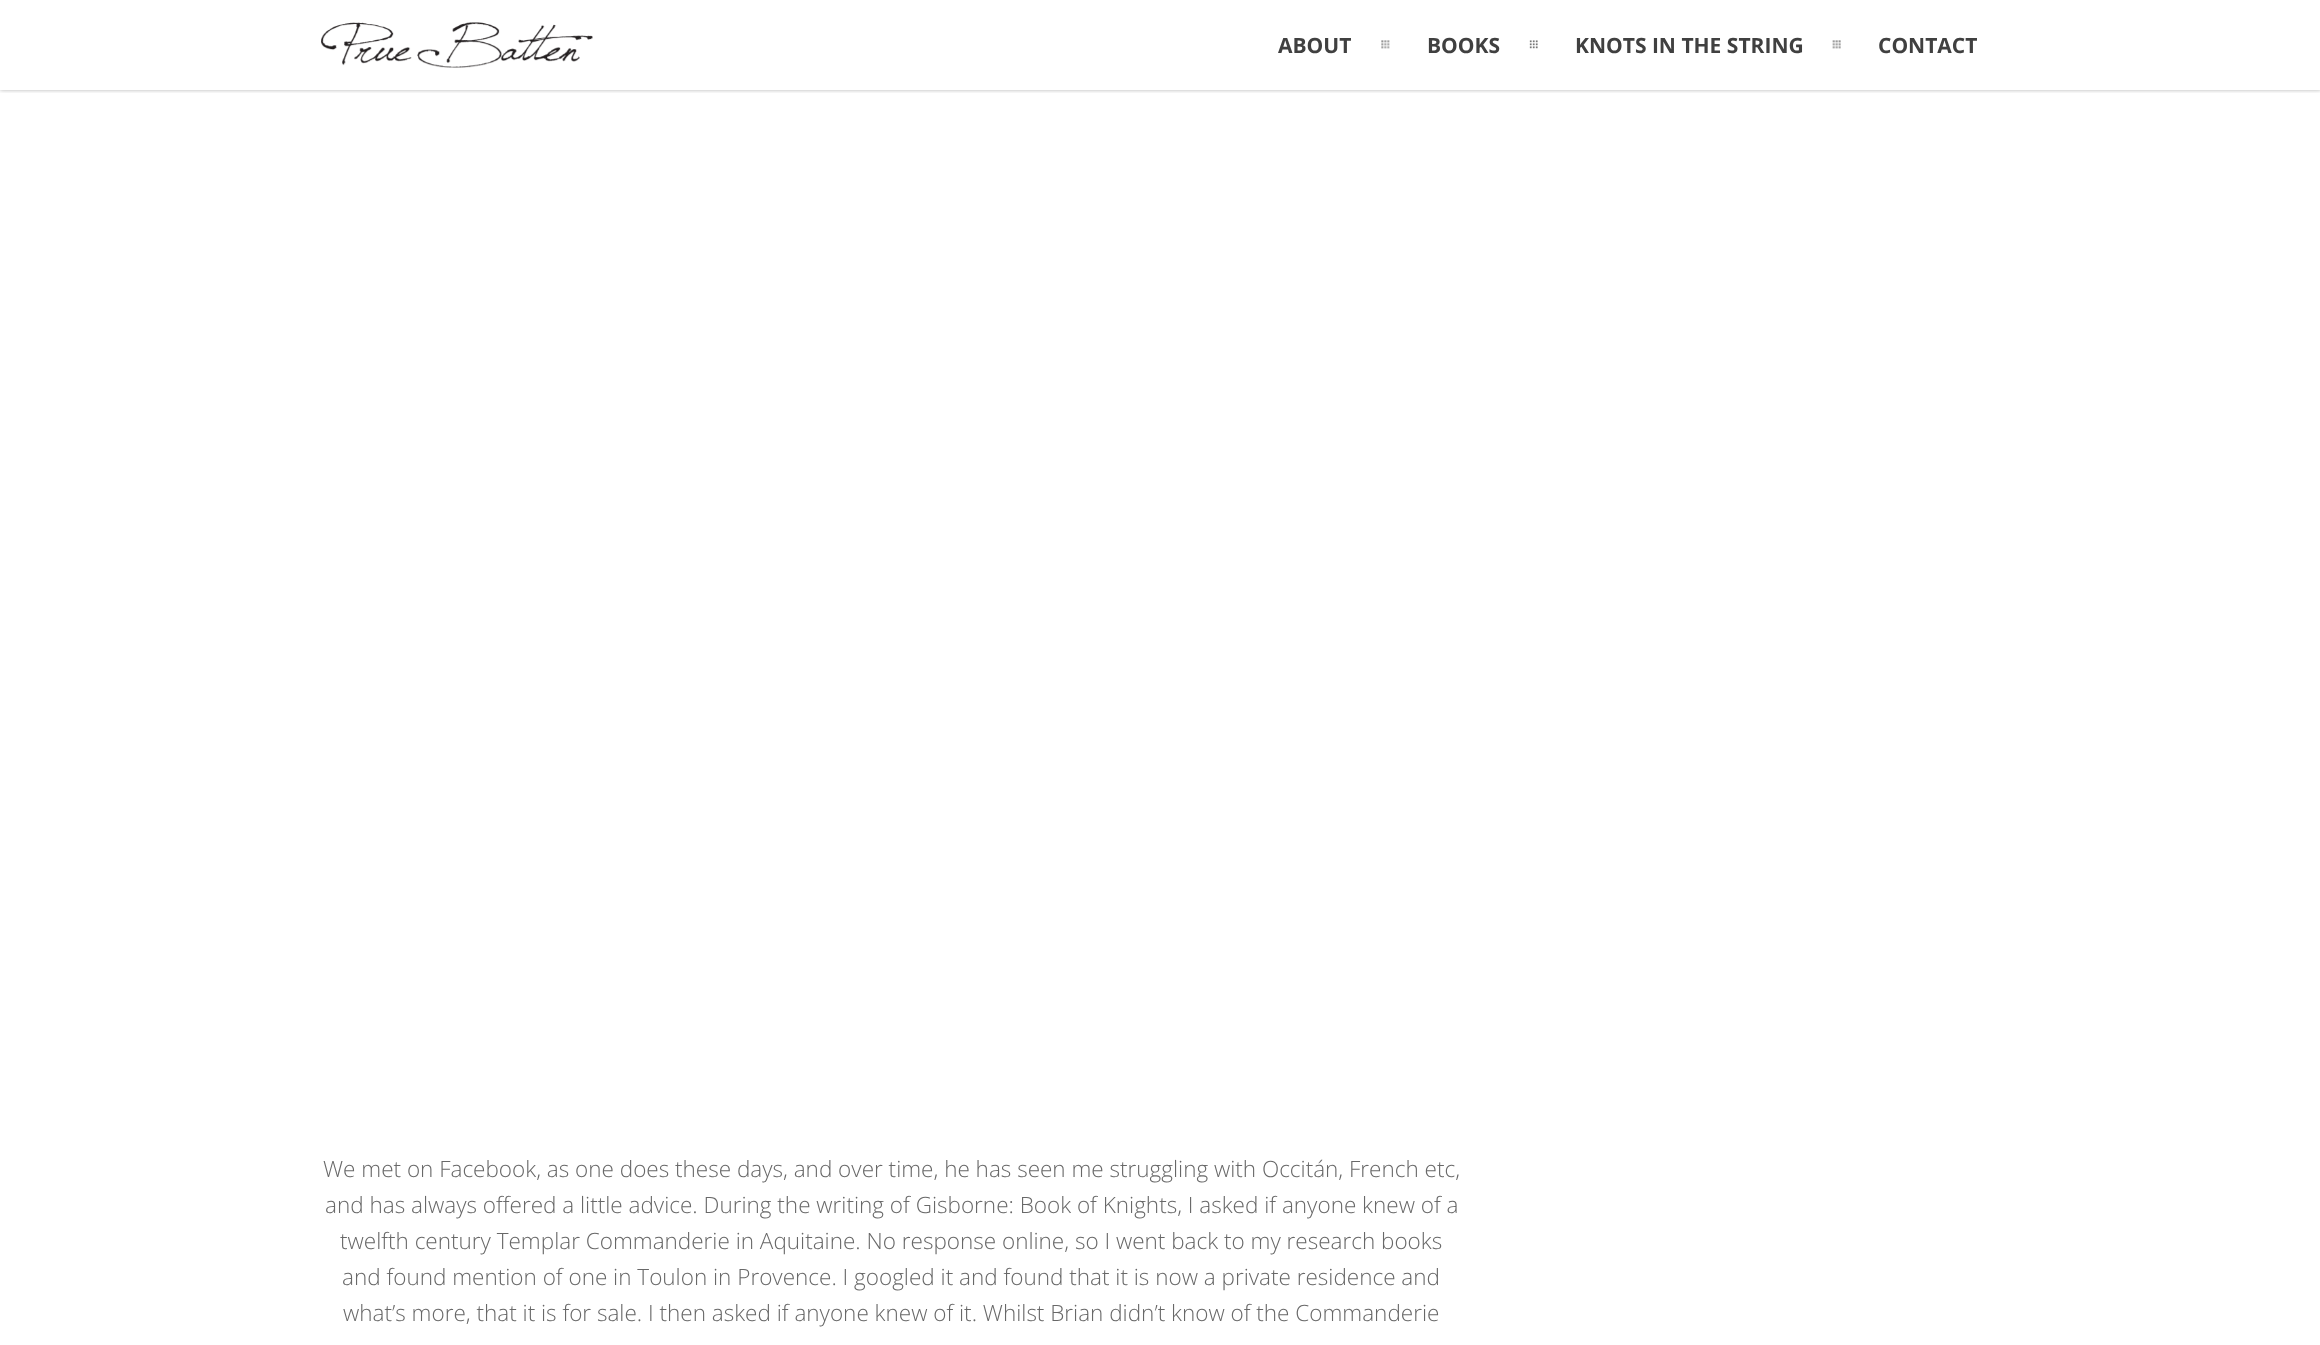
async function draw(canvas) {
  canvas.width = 2320
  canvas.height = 1345
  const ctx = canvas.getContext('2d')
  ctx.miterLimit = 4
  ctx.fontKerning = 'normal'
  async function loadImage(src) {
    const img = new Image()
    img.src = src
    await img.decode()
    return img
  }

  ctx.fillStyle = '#fff'
  ctx.fillRect(0, 0, 2320, 1345)
  ctx.save()
  ctx.beginPath()
  ctx.rect(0, 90, 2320, 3)
  ctx.clip()
  ctx.fillStyle = '#0000004d'
  ctx.filter = 'blur(2px)'
  ctx.beginPath()
  ctx.rect(0, 0, 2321, 90)
  ctx.fill()
  ctx.filter = 'none'
  ctx.restore()
  ctx.drawImage(await loadImage('image0.png'), 321, 22, 272, 46)
  ctx.drawImage(await loadImage('image1.png'), 1381, 40, 9, 9)
  ctx.font = 'bold 21px Open Sans'
  ctx.fillStyle = '#404040'
  ctx.fillText('ABOUT', 1278, 53)
  ctx.drawImage(await loadImage('image2.png'), 1529, 40, 9, 9)
  ctx.fillText('BOOKS', 1427, 53)
  ctx.drawImage(await loadImage('image3.png'), 1832, 40, 9, 9)
  ctx.fillText('KNOTS IN THE STRING', 1575, 53)
  ctx.fillText('CONTACT', 1878, 53)
  ctx.font = '300 22.5px Open Sans'
  ctx.fillStyle = '#686868'
  ctx.fillText('We met on Facebook, as one does these days, and over time, he has seen me struggling with Occitán, French etc,', 323, 1177)
  ctx.fillText('and has always offered a little advice. During the writing of Gisborne: Book of Knights, I asked if anyone knew of a', 325, 1213)
  ctx.fillText('twelfth century Templar Commanderie in Aquitaine. No response online, so I went back to my research books', 340, 1249)
  ctx.fillText('and found mention of one in Toulon in Provence. I googled it and found that it is now a private residence and', 342, 1285)
  ctx.fillText('what’s more, that it is for sale. I then asked if anyone knew of it. Whilst Brian didn’t know of the Commanderie', 343, 1321)
}

draw(document.querySelector('canvas'))
